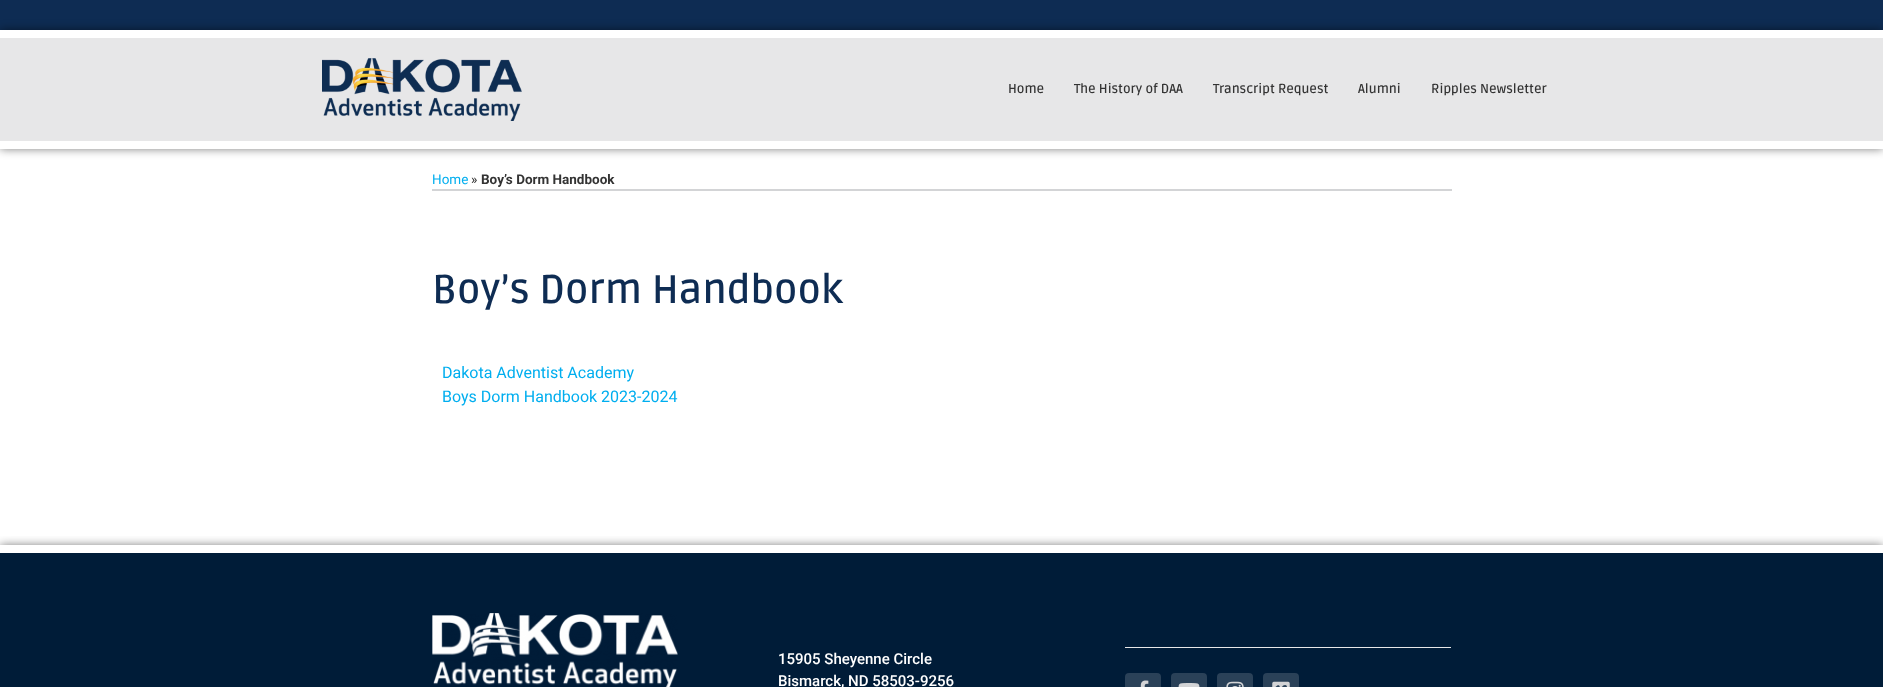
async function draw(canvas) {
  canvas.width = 1883
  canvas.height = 687
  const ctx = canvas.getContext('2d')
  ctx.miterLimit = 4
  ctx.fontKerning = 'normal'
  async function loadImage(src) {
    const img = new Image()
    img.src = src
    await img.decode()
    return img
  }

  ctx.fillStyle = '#fff'
  ctx.fillRect(0, 0, 1883, 687)
  ctx.fillStyle = '#0e2c53'
  ctx.fillRect(0, 0, 1883, 30)
  ctx.save()
  ctx.beginPath()
  ctx.moveTo(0, 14)
  ctx.lineTo(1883, 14)
  ctx.lineTo(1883, 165)
  ctx.lineTo(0, 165)
  ctx.closePath()
  ctx.moveTo(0, 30)
  ctx.lineTo(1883, 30)
  ctx.lineTo(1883, 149)
  ctx.lineTo(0, 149)
  ctx.closePath()
  ctx.clip('evenodd')
  ctx.fillStyle = '#00000080'
  ctx.filter = 'blur(5px)'
  ctx.beginPath()
  ctx.rect(0, 30, 1883, 119)
  ctx.fill()
  ctx.filter = 'none'
  ctx.restore()
  ctx.fillStyle = '#e7e7e8'
  ctx.fillRect(0, 38, 1883, 103)
  ctx.drawImage(await loadImage('image0.png'), 322, 58, 200, 63)
  ctx.font = '600 13px Ruda'
  ctx.fillStyle = '#333'
  ctx.fillText('Home', 1008, 93)
  ctx.fillText('The History of DAA', 1074, 93)
  ctx.fillText('Transcript Request', 1213, 93)
  ctx.fillText('Alumni', 1358, 93)
  ctx.fillText('Ripples Newsletter', 1431, 93)
  ctx.fillStyle = '#d3d4d6'
  ctx.fillRect(432, 189, 1020, 2)
  ctx.font = '13.5px Roboto'
  ctx.fillStyle = '#00aeef'
  ctx.fillText('Home', 432, 184)
  ctx.fillStyle = '#333'
  ctx.fillText('»', 471, 184)
  ctx.font = 'bold 13.5px Roboto'
  ctx.fillText('Boy’s Dorm Handbook', 481, 184)
  ctx.font = '600 40px Ruda'
  ctx.fillStyle = '#0e2c53'
  ctx.fillText('Boy’s Dorm Handbook', 432, 303)
  ctx.font = '16px Roboto'
  ctx.fillStyle = '#00aeef'
  ctx.fillText('Dakota Adventist Academy', 442, 378)
  ctx.fillText('Boys Dorm Handbook 2023-2024', 442, 402)
  ctx.save()
  ctx.beginPath()
  ctx.rect(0, 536, 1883, 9)
  ctx.clip()
  ctx.fillStyle = '#00000080'
  ctx.filter = 'blur(5px)'
  ctx.beginPath()
  ctx.rect(0, 545, 1883, 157)
  ctx.fill()
  ctx.filter = 'none'
  ctx.restore()
  ctx.fillStyle = '#001c38'
  ctx.fillRect(0, 553, 1883, 134)
  ctx.drawImage(await loadImage('image1.png'), 432, 613, 246, 74)
  ctx.font = '500 15px Roboto'
  ctx.fillStyle = '#fff'
  ctx.fillText('15905 Sheyenne Circle', 778, 664)
  ctx.fillText('Bismarck, ND 58503-9256', 778, 686)
  ctx.fillStyle = '#e7e7e8'
  ctx.fillRect(1125, 647, 326, 1)
  ctx.fillStyle = '#2a4158'
  ctx.beginPath()
  ctx.roundRect(1125, 673, 36, 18, 4)
  ctx.fill()
  ctx.drawImage(await loadImage('image2.png'), 1140, 680, 9, 7)
  ctx.beginPath()
  ctx.roundRect(1171, 673, 36, 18, 4)
  ctx.fill()
  ctx.drawImage(await loadImage('image3.png'), 1178, 683, 22, 4)
  ctx.beginPath()
  ctx.roundRect(1217, 673, 36, 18, 4)
  ctx.fill()
  ctx.drawImage(await loadImage('image4.png'), 1226, 681, 18, 6)
  ctx.beginPath()
  ctx.roundRect(1263, 673, 36, 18, 4)
  ctx.fill()
  ctx.drawImage(await loadImage('image5.png'), 1272, 681, 18, 6)
}

draw(document.querySelector('canvas'))
